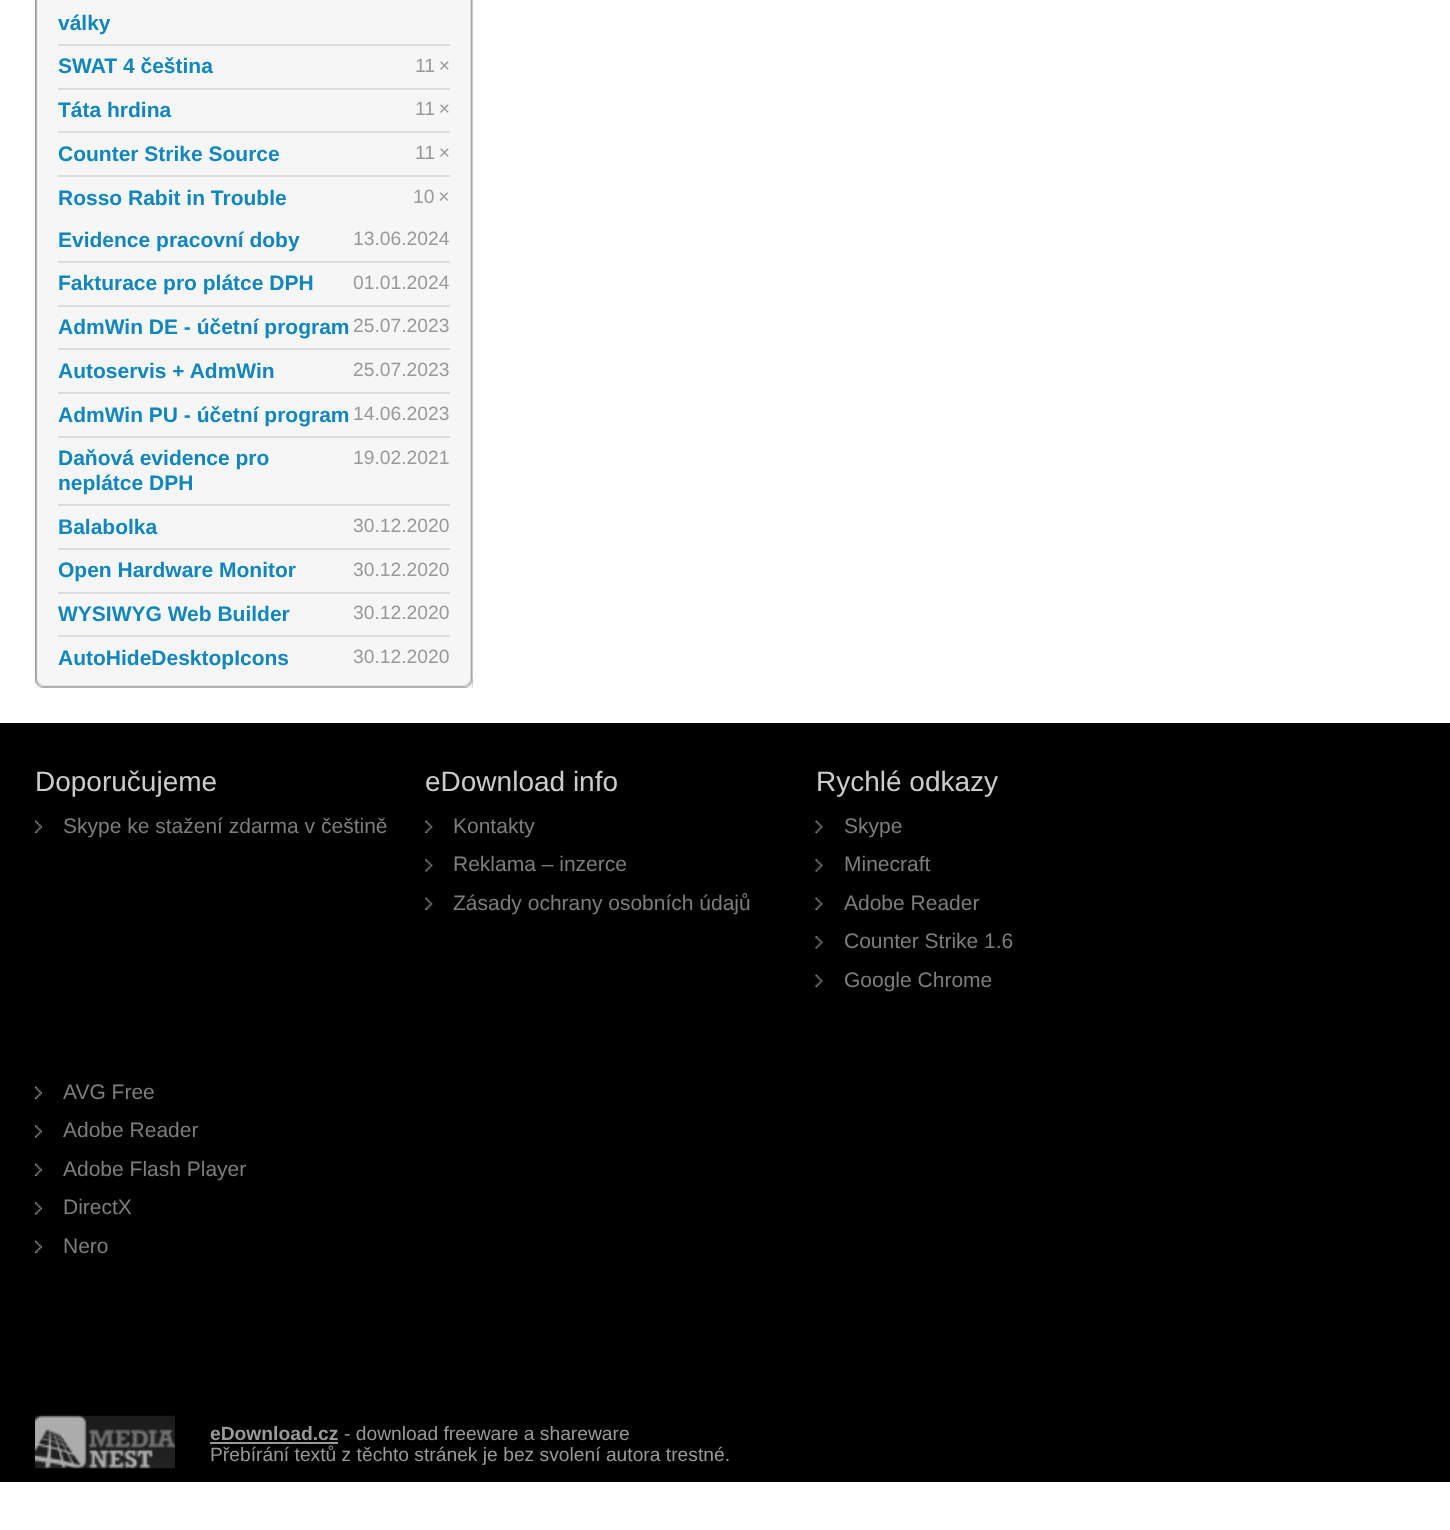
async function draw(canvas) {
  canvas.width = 1450
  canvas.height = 1530
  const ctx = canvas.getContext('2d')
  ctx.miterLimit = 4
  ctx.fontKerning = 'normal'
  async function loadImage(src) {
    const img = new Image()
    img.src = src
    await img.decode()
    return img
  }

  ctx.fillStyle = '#fff'
  ctx.fillRect(0, 0, 1450, 1530)
  ctx.fillStyle = '#f6f6f6'
  ctx.fillRect(35, 0, 438, 688)
  ctx.drawImage(await loadImage('image0.png'), 35, 0, 438, 688)
  ctx.fillStyle = '#ddd'
  ctx.fillRect(58, 44, 392, 2)
  ctx.font = 'bold 21px Liberation Sans'
  ctx.fillStyle = '#1086bd'
  ctx.fillText('války', 58, 30)
  ctx.fillStyle = '#ddd'
  ctx.fillRect(58, 88, 392, 2)
  ctx.fillStyle = '#1086bd'
  ctx.fillText('SWAT 4 čeština', 58, 73)
  ctx.font = '19.25px Liberation Sans'
  ctx.fillStyle = '#999'
  ctx.fillText('11 ×', 415, 72)
  ctx.fillStyle = '#ddd'
  ctx.fillRect(58, 131, 392, 2)
  ctx.font = 'bold 21px Liberation Sans'
  ctx.fillStyle = '#1086bd'
  ctx.fillText('Táta hrdina', 58, 117)
  ctx.font = '19.25px Liberation Sans'
  ctx.fillStyle = '#999'
  ctx.fillText('11 ×', 415, 115)
  ctx.fillStyle = '#ddd'
  ctx.fillRect(58, 175, 392, 2)
  ctx.font = 'bold 21px Liberation Sans'
  ctx.fillStyle = '#1086bd'
  ctx.fillText('Counter Strike Source', 58, 161)
  ctx.font = '19.25px Liberation Sans'
  ctx.fillStyle = '#999'
  ctx.fillText('11 ×', 415, 159)
  ctx.font = 'bold 21px Liberation Sans'
  ctx.fillStyle = '#1086bd'
  ctx.fillText('Rosso Rabit in Trouble', 58, 205)
  ctx.font = '19.25px Liberation Sans'
  ctx.fillStyle = '#999'
  ctx.fillText('10 ×', 413, 203)
  ctx.fillStyle = '#ddd'
  ctx.fillRect(58, 261, 392, 2)
  ctx.font = 'bold 21px Liberation Sans'
  ctx.fillStyle = '#1086bd'
  ctx.fillText('Evidence pracovní doby', 58, 247)
  ctx.font = '19.25px Liberation Sans'
  ctx.fillStyle = '#999'
  ctx.fillText('13.06.2024', 353, 245)
  ctx.fillStyle = '#ddd'
  ctx.fillRect(58, 305, 392, 2)
  ctx.font = 'bold 21px Liberation Sans'
  ctx.fillStyle = '#1086bd'
  ctx.fillText('Fakturace pro plátce DPH', 58, 290)
  ctx.font = '19.25px Liberation Sans'
  ctx.fillStyle = '#999'
  ctx.fillText('01.01.2024', 353, 289)
  ctx.fillStyle = '#ddd'
  ctx.fillRect(58, 348, 392, 2)
  ctx.font = 'bold 21px Liberation Sans'
  ctx.fillStyle = '#1086bd'
  ctx.fillText('AdmWin DE - účetní program', 58, 334)
  ctx.font = '19.25px Liberation Sans'
  ctx.fillStyle = '#999'
  ctx.fillText('25.07.2023', 353, 332)
  ctx.fillStyle = '#ddd'
  ctx.fillRect(58, 392, 392, 2)
  ctx.font = 'bold 21px Liberation Sans'
  ctx.fillStyle = '#1086bd'
  ctx.fillText('Autoservis + AdmWin', 58, 378)
  ctx.font = '19.25px Liberation Sans'
  ctx.fillStyle = '#999'
  ctx.fillText('25.07.2023', 353, 376)
  ctx.fillStyle = '#ddd'
  ctx.fillRect(58, 436, 392, 2)
  ctx.font = 'bold 21px Liberation Sans'
  ctx.fillStyle = '#1086bd'
  ctx.fillText('AdmWin PU - účetní program', 58, 422)
  ctx.font = '19.25px Liberation Sans'
  ctx.fillStyle = '#999'
  ctx.fillText('14.06.2023', 353, 420)
  ctx.fillStyle = '#ddd'
  ctx.fillRect(58, 504, 392, 2)
  ctx.font = 'bold 21px Liberation Sans'
  ctx.fillStyle = '#1086bd'
  ctx.fillText('Daňová evidence pro', 58, 465)
  ctx.fillText('neplátce DPH', 58, 490)
  ctx.font = '19.25px Liberation Sans'
  ctx.fillStyle = '#999'
  ctx.fillText('19.02.2021', 353, 464)
  ctx.fillStyle = '#ddd'
  ctx.fillRect(58, 548, 392, 2)
  ctx.font = 'bold 21px Liberation Sans'
  ctx.fillStyle = '#1086bd'
  ctx.fillText('Balabolka', 58, 534)
  ctx.font = '19.25px Liberation Sans'
  ctx.fillStyle = '#999'
  ctx.fillText('30.12.2020', 353, 532)
  ctx.fillStyle = '#ddd'
  ctx.fillRect(58, 592, 392, 2)
  ctx.font = 'bold 21px Liberation Sans'
  ctx.fillStyle = '#1086bd'
  ctx.fillText('Open Hardware Monitor', 58, 577)
  ctx.font = '19.25px Liberation Sans'
  ctx.fillStyle = '#999'
  ctx.fillText('30.12.2020', 353, 576)
  ctx.fillStyle = '#ddd'
  ctx.fillRect(58, 635, 392, 2)
  ctx.font = 'bold 21px Liberation Sans'
  ctx.fillStyle = '#1086bd'
  ctx.fillText('WYSIWYG Web Builder', 58, 621)
  ctx.font = '19.25px Liberation Sans'
  ctx.fillStyle = '#999'
  ctx.fillText('30.12.2020', 353, 619)
  ctx.font = 'bold 21px Liberation Sans'
  ctx.fillStyle = '#1086bd'
  ctx.fillText('AutoHideDesktopIcons', 58, 665)
  ctx.font = '19.25px Liberation Sans'
  ctx.fillStyle = '#999'
  ctx.fillText('30.12.2020', 353, 663)
  ctx.drawImage(await loadImage('image1.png'), 35, 679, 438, 9)
  ctx.fillStyle = '#000'
  ctx.fillRect(0, 723, 1450, 759)
  ctx.font = '28px Liberation Sans'
  ctx.fillStyle = '#ccc'
  ctx.fillText('Doporučujeme', 35, 791)
  ctx.drawImage(await loadImage('image2.png'), 35, 820, 7, 13)
  ctx.font = '21px Liberation Sans'
  ctx.fillStyle = '#7d7d7d'
  ctx.fillText('Skype ke stažení zdarma v češtině', 63, 833)
  ctx.font = '28px Liberation Sans'
  ctx.fillStyle = '#ccc'
  ctx.fillText('eDownload info', 425, 791)
  ctx.drawImage(await loadImage('image3.png'), 425, 820, 8, 13)
  ctx.font = '21px Liberation Sans'
  ctx.fillStyle = '#7d7d7d'
  ctx.fillText('Kontakty', 453, 833)
  ctx.drawImage(await loadImage('image4.png'), 425, 859, 8, 13)
  ctx.fillText('Reklama – inzerce', 453, 871)
  ctx.drawImage(await loadImage('image3.png'), 425, 897, 8, 13)
  ctx.fillText('Zásady ochrany osobních údajů', 453, 910)
  ctx.font = '28px Liberation Sans'
  ctx.fillStyle = '#ccc'
  ctx.fillText('Rychlé odkazy', 816, 791)
  ctx.drawImage(await loadImage('image5.png'), 815, 820, 8, 13)
  ctx.font = '21px Liberation Sans'
  ctx.fillStyle = '#7d7d7d'
  ctx.fillText('Skype', 844, 833)
  ctx.drawImage(await loadImage('image6.png'), 815, 859, 8, 13)
  ctx.fillText('Minecraft', 844, 871)
  ctx.drawImage(await loadImage('image5.png'), 815, 897, 8, 13)
  ctx.fillText('Adobe Reader', 844, 910)
  ctx.drawImage(await loadImage('image6.png'), 815, 936, 8, 13)
  ctx.fillText('Counter Strike 1.6', 844, 948)
  ctx.drawImage(await loadImage('image5.png'), 815, 974, 8, 13)
  ctx.fillText('Google Chrome', 844, 987)
  ctx.drawImage(await loadImage('image2.png'), 35, 1086, 7, 13)
  ctx.fillText('AVG Free', 63, 1099)
  ctx.drawImage(await loadImage('image7.png'), 35, 1125, 7, 13)
  ctx.fillText('Adobe Reader', 63, 1137)
  ctx.drawImage(await loadImage('image2.png'), 35, 1163, 7, 13)
  ctx.fillText('Adobe Flash Player', 63, 1176)
  ctx.drawImage(await loadImage('image7.png'), 35, 1202, 7, 13)
  ctx.fillText('DirectX', 63, 1214)
  ctx.drawImage(await loadImage('image2.png'), 35, 1240, 7, 13)
  ctx.fillText('Nero', 63, 1253)
  ctx.drawImage(await loadImage('image8.png'), 35, 1415, 140, 54)
  ctx.font = 'bold 19.25px Liberation Sans'
  ctx.fillStyle = '#999'
  ctx.fillText('eDownload.cz', 210, 1440)
  ctx.fillRect(210, 1442, 128, 2)
  ctx.font = '19.25px Liberation Sans'
  ctx.fillText('- download freeware a shareware', 344, 1440)
  ctx.fillText('Přebírání textů z těchto stránek je bez svolení autora trestné.', 210, 1461)
}

draw(document.querySelector('canvas'))
